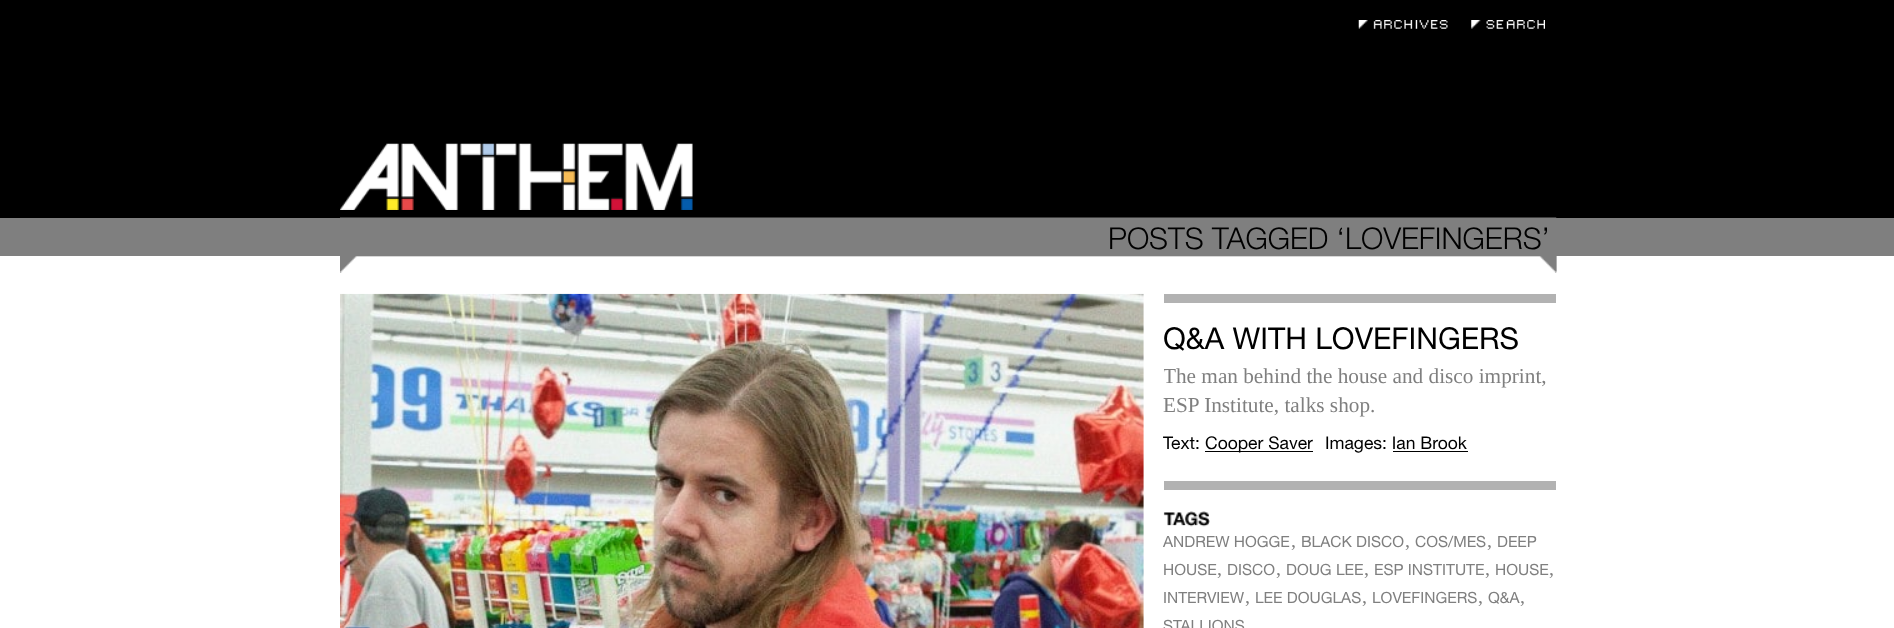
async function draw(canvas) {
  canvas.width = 1894
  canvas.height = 628
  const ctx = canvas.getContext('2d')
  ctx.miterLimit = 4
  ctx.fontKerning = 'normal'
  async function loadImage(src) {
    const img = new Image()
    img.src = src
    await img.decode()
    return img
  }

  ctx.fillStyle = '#fff'
  ctx.fillRect(0, 0, 1894, 628)
  ctx.fillStyle = '#000'
  ctx.fillRect(0, 0, 1894, 218)
  ctx.drawImage(await loadImage('image0.png'), 340, 256, 1217, 17)
  ctx.drawImage(await loadImage('image1.png'), 1358, 20, 90, 9)
  ctx.drawImage(await loadImage('image2.png'), 1471, 20, 74, 9)
  ctx.drawImage(await loadImage('image3.png'), 340, 143, 353, 67)
  ctx.fillStyle = '#7f7f7f'
  ctx.fillRect(0, 218, 1894, 38)
  ctx.drawImage(await loadImage('image4.png'), 340, 217, 1217, 56)
  ctx.font = '300 30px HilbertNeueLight'
  ctx.fillStyle = '#000'
  ctx.fillText('POSTS TAGGED ‘LOVEFINGERS’', 1108, 249)
  ctx.drawImage(await loadImage('image5.png'), 340, 293, 804, 335)
  ctx.fillStyle = '#b2b2b2'
  ctx.fillRect(1164, 294, 392, 9)
  ctx.font = '500 30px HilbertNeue'
  ctx.fillStyle = '#000'
  ctx.fillText('Q&A WITH LOVEFINGERS', 1163, 349)
  ctx.save()
  ctx.beginPath()
  ctx.rect(1164, 303, 392, 178)
  ctx.clip()
  ctx.font = '21.25px Liberation Serif'
  ctx.fillStyle = '#7f7f7f'
  ctx.fillText('The man behind the house and disco imprint,', 1163, 383)
  ctx.restore()
  ctx.font = '21.25px Liberation Serif'
  ctx.fillStyle = '#7f7f7f'
  ctx.fillText('ESP Institute, talks shop.', 1163, 412)
  ctx.font = '500 17.5px HilbertNeue'
  ctx.fillStyle = '#000'
  ctx.fillText('Text:', 1163, 449)
  ctx.fillRect(1205, 451, 108, 1)
  ctx.fillText('Cooper Saver', 1205, 449)
  ctx.fillText('Images: Ian Brook', 1325, 449)
  ctx.fillRect(1393, 451, 75, 1)
  ctx.fillStyle = '#b2b2b2'
  ctx.fillRect(1164, 481, 392, 9)
  ctx.drawImage(await loadImage('image6.png'), 1163, 511, 47, 16)
  ctx.font = '500 15.5px HilbertNeue'
  ctx.fillStyle = '#7f7f7f'
  ctx.fillText('ANDREW HOGGE', 1163, 547)
  ctx.font = '20px Liberation Serif'
  ctx.fillText(',', 1291, 547)
  ctx.font = '500 15.5px HilbertNeue'
  ctx.fillText('BLACK DISCO', 1301, 547)
  ctx.font = '20px Liberation Serif'
  ctx.fillText(',', 1405, 547)
  ctx.font = '500 15.5px HilbertNeue'
  ctx.fillText('COS/MES', 1415, 547)
  ctx.font = '20px Liberation Serif'
  ctx.fillText(',', 1487, 547)
  ctx.font = '500 15.5px HilbertNeue'
  ctx.fillText('DEEP', 1497, 547)
  ctx.fillText('HOUSE', 1163, 575)
  ctx.font = '20px Liberation Serif'
  ctx.fillText(',', 1217, 575)
  ctx.font = '500 15.5px HilbertNeue'
  ctx.fillText('DISCO', 1227, 575)
  ctx.font = '20px Liberation Serif'
  ctx.fillText(',', 1276, 575)
  ctx.font = '500 15.5px HilbertNeue'
  ctx.fillText('DOUG LEE', 1286, 575)
  ctx.font = '20px Liberation Serif'
  ctx.fillText(',', 1364, 575)
  ctx.font = '500 15.5px HilbertNeue'
  ctx.fillText('ESP INSTITUTE', 1374, 575)
  ctx.font = '20px Liberation Serif'
  ctx.fillText(',', 1485, 575)
  ctx.font = '500 15.5px HilbertNeue'
  ctx.fillText('HOUSE', 1495, 575)
  ctx.font = '20px Liberation Serif'
  ctx.fillText(',', 1549, 575)
  ctx.font = '500 15.5px HilbertNeue'
  ctx.fillText('INTERVIEW', 1163, 603)
  ctx.font = '20px Liberation Serif'
  ctx.fillText(',', 1245, 603)
  ctx.font = '500 15.5px HilbertNeue'
  ctx.fillText('LEE DOUGLAS', 1255, 603)
  ctx.font = '20px Liberation Serif'
  ctx.fillText(',', 1362, 603)
  ctx.font = '500 15.5px HilbertNeue'
  ctx.fillText('LOVEFINGERS', 1372, 603)
  ctx.font = '20px Liberation Serif'
  ctx.fillText(',', 1478, 603)
  ctx.font = '500 15.5px HilbertNeue'
  ctx.fillText('Q&A', 1488, 603)
  ctx.font = '20px Liberation Serif'
  ctx.fillText(',', 1520, 603)
  ctx.font = '500 15.5px HilbertNeue'
  ctx.fillText('STALLIONS', 1163, 631)
}

draw(document.querySelector('canvas'))
